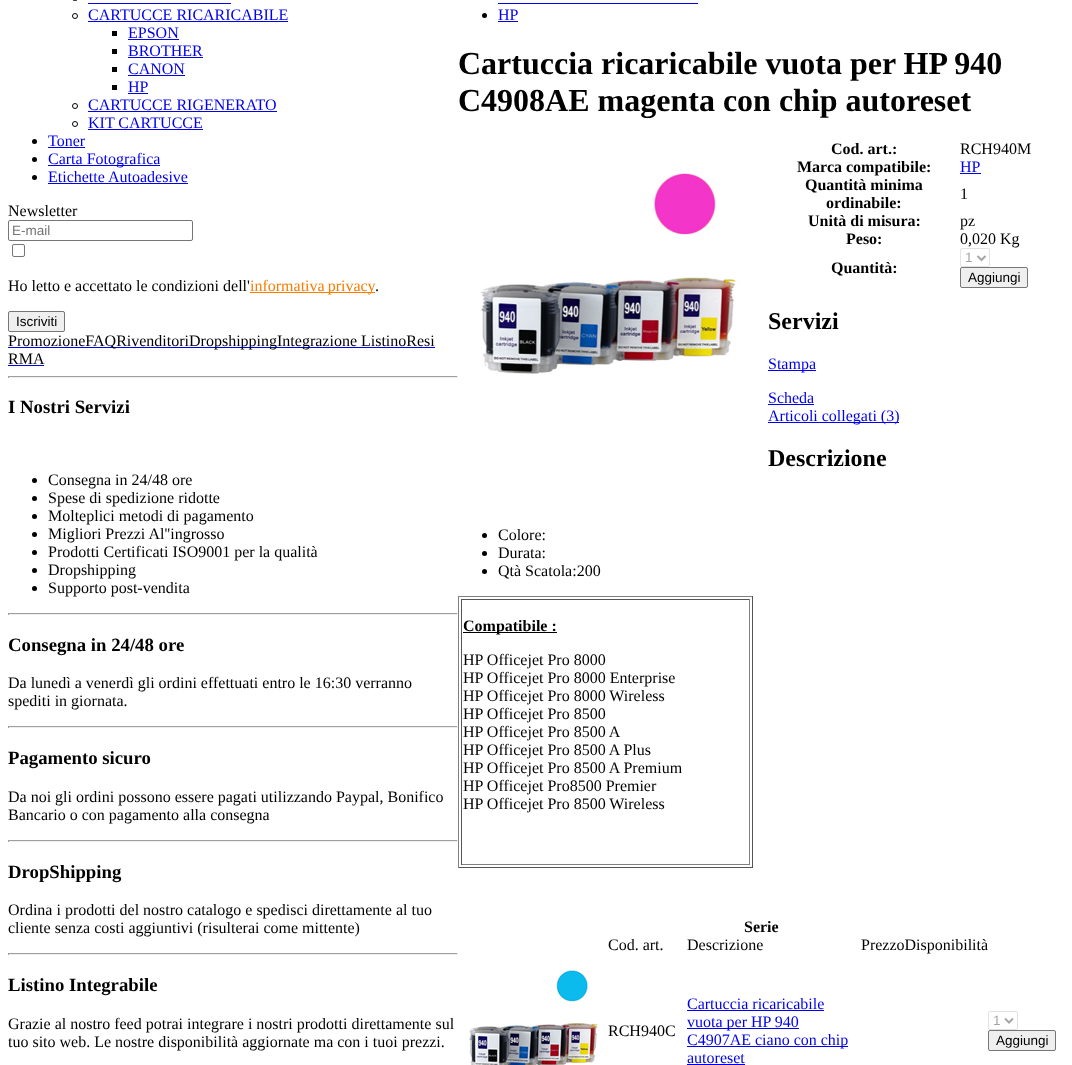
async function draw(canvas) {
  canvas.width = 1072
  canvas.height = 1065
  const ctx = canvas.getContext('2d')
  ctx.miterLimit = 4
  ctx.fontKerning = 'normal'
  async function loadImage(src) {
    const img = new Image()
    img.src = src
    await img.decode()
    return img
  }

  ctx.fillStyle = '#fff'
  ctx.fillRect(0, 0, 1072, 1065)
  ctx.beginPath()
  ctx.roundRect(72.5, -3.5, 5, 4, 2.5)
  ctx.strokeStyle = '#000'
  ctx.stroke()
  ctx.fillStyle = '#00e'
  ctx.fillRect(88, 3, 143, 1)
  ctx.beginPath()
  ctx.arc(75, 16, 2.5, 0, 2 * Math.PI)
  ctx.stroke()
  ctx.font = '16px Liberation Serif'
  ctx.fillText('CARTUCCE RICARICABILE', 88, 20)
  ctx.fillRect(88, 21, 200, 1)
  ctx.fillStyle = '#000'
  ctx.fillRect(112, 31, 5, 5)
  ctx.fillStyle = '#00e'
  ctx.fillText('EPSON', 128, 38)
  ctx.fillRect(128, 39, 51, 1)
  ctx.fillStyle = '#000'
  ctx.fillRect(112, 49, 5, 5)
  ctx.fillStyle = '#00e'
  ctx.fillText('BROTHER', 128, 56)
  ctx.fillRect(128, 57, 75, 1)
  ctx.fillStyle = '#000'
  ctx.fillRect(112, 67, 5, 5)
  ctx.fillStyle = '#00e'
  ctx.fillText('CANON', 128, 74)
  ctx.fillRect(128, 75, 57, 1)
  ctx.fillStyle = '#000'
  ctx.fillRect(112, 85, 5, 5)
  ctx.fillStyle = '#00e'
  ctx.fillText('HP', 128, 92)
  ctx.fillRect(128, 93, 20, 1)
  ctx.beginPath()
  ctx.arc(75, 106, 2.5, 0, 2 * Math.PI)
  ctx.stroke()
  ctx.fillText('CARTUCCE RIGENERATO', 88, 110)
  ctx.fillRect(88, 111, 189, 1)
  ctx.beginPath()
  ctx.arc(75, 124, 2.5, 0, 2 * Math.PI)
  ctx.stroke()
  ctx.fillText('KIT CARTUCCE', 88, 128)
  ctx.fillRect(88, 129, 115, 1)
  ctx.fillStyle = '#000'
  ctx.beginPath()
  ctx.arc(34.5, 141.5, 2.5, 0, 2 * Math.PI)
  ctx.fill()
  ctx.fillStyle = '#00e'
  ctx.fillText('Toner', 48, 146)
  ctx.fillRect(48, 147, 37, 1)
  ctx.fillStyle = '#000'
  ctx.beginPath()
  ctx.arc(34.5, 159.5, 2.5, 0, 2 * Math.PI)
  ctx.fill()
  ctx.fillStyle = '#00e'
  ctx.fillRect(48, 165, 112, 1)
  ctx.fillText('Carta Fotografica', 48, 164)
  ctx.fillStyle = '#000'
  ctx.beginPath()
  ctx.arc(34.5, 177.5, 2.5, 0, 2 * Math.PI)
  ctx.fill()
  ctx.fillStyle = '#00e'
  ctx.fillText('Etichette Autoadesive', 48, 182)
  ctx.fillRect(48, 183, 140, 1)
  ctx.fillStyle = '#000'
  ctx.fillText('Newsletter', 8, 216)
  ctx.beginPath()
  ctx.roundRect(8.5, 220.5, 184, 20, 1.5)
  ctx.strokeStyle = '#767676'
  ctx.stroke()
  ctx.font = '13.5px Liberation Sans'
  ctx.fillStyle = '#757575'
  ctx.fillText('E-mail', 12, 235)
  ctx.beginPath()
  ctx.roundRect(12.5, 244.5, 12, 12, 1.5)
  ctx.stroke()
  ctx.font = '16px Liberation Serif'
  ctx.fillStyle = '#000'
  ctx.fillText('Ho letto e accettato le condizioni dell\'', 8, 291)
  ctx.fillStyle = '#f97c00'
  ctx.fillRect(250, 292, 125, 1)
  ctx.wordSpacing = '-1px'
  ctx.fillText('informativa privacy', 250, 291)
  ctx.wordSpacing = '0px'
  ctx.fillStyle = '#000'
  ctx.fillText('.', 375, 291)
  ctx.fillStyle = '#efefef'
  ctx.beginPath()
  ctx.roundRect(8.5, 311.5, 56, 20, 1.5)
  ctx.fill()
  ctx.stroke()
  ctx.font = '13.5px Liberation Sans'
  ctx.fillStyle = '#000'
  ctx.fillText('Iscriviti', 16, 326)
  ctx.fillStyle = '#00e'
  ctx.fillRect(8, 347, 427, 1)
  ctx.font = '16px Liberation Serif'
  ctx.fillStyle = '#000'
  ctx.fillText('PromozioneFAQRivenditoriDropshippingIntegrazione ListinoResi', 8, 346)
  ctx.fillText('RMA', 8, 364)
  ctx.fillStyle = '#00e'
  ctx.fillRect(8, 365, 36, 1)
  ctx.fillStyle = '#9f9f9f'
  ctx.fillRect(8, 376, 450, 1)
  ctx.fillStyle = '#eee'
  ctx.fillRect(457, 376, 1, 2)
  ctx.fillRect(8, 377, 450, 1)
  ctx.fillStyle = '#9f9f9f'
  ctx.fillRect(8, 376, 1, 2)
  ctx.font = 'bold 18.75px Liberation Serif'
  ctx.fillStyle = '#000'
  ctx.fillText('I Nostri Servizi', 8, 413)
  ctx.beginPath()
  ctx.arc(34.5, 480.5, 2.5, 0, 2 * Math.PI)
  ctx.fill()
  ctx.font = '16px Liberation Serif'
  ctx.fillText('Consegna in 24/48 ore', 48, 485)
  ctx.beginPath()
  ctx.arc(34.5, 498.5, 2.5, 0, 2 * Math.PI)
  ctx.fill()
  ctx.fillText('Spese di spedizione ridotte', 48, 503)
  ctx.beginPath()
  ctx.arc(34.5, 516.5, 2.5, 0, 2 * Math.PI)
  ctx.fill()
  ctx.fillText('Molteplici metodi di pagamento', 48, 521)
  ctx.beginPath()
  ctx.arc(34.5, 534.5, 2.5, 0, 2 * Math.PI)
  ctx.fill()
  ctx.fillText('Migliori Prezzi Al\'\'ingrosso', 48, 539)
  ctx.beginPath()
  ctx.arc(34.5, 552.5, 2.5, 0, 2 * Math.PI)
  ctx.fill()
  ctx.fillText('Prodotti Certificati ISO9001 per la qualità', 48, 557)
  ctx.beginPath()
  ctx.arc(34.5, 570.5, 2.5, 0, 2 * Math.PI)
  ctx.fill()
  ctx.fillText('Dropshipping', 48, 575)
  ctx.beginPath()
  ctx.arc(34.5, 588.5, 2.5, 0, 2 * Math.PI)
  ctx.fill()
  ctx.fillText('Supporto post-vendita', 48, 593)
  ctx.fillStyle = '#9f9f9f'
  ctx.fillRect(8, 613, 450, 1)
  ctx.fillStyle = '#eee'
  ctx.fillRect(457, 613, 1, 2)
  ctx.fillRect(8, 614, 450, 1)
  ctx.fillStyle = '#9f9f9f'
  ctx.fillRect(8, 613, 1, 2)
  ctx.font = 'bold 18.75px Liberation Serif'
  ctx.fillStyle = '#000'
  ctx.fillText('Consegna in 24/48 ore', 8, 651)
  ctx.font = '16px Liberation Serif'
  ctx.fillText('Da lunedì a venerdì gli ordini effettuati entro le 16:30 verranno', 8, 688)
  ctx.fillText('spediti in giornata.', 8, 706)
  ctx.fillStyle = '#9f9f9f'
  ctx.fillRect(8, 726, 450, 1)
  ctx.fillStyle = '#eee'
  ctx.fillRect(457, 726, 1, 2)
  ctx.fillRect(8, 727, 450, 1)
  ctx.fillStyle = '#9f9f9f'
  ctx.fillRect(8, 726, 1, 2)
  ctx.font = 'bold 18.75px Liberation Serif'
  ctx.fillStyle = '#000'
  ctx.fillText('Pagamento sicuro', 8, 764)
  ctx.font = '16px Liberation Serif'
  ctx.fillText('Da noi gli ordini possono essere pagati utilizzando Paypal, Bonifico', 8, 802)
  ctx.fillText('Bancario o con pagamento alla consegna', 8, 820)
  ctx.fillStyle = '#9f9f9f'
  ctx.fillRect(8, 840, 450, 1)
  ctx.fillStyle = '#eee'
  ctx.fillRect(457, 840, 1, 2)
  ctx.fillRect(8, 841, 450, 1)
  ctx.fillStyle = '#9f9f9f'
  ctx.fillRect(8, 840, 1, 2)
  ctx.font = 'bold 18.75px Liberation Serif'
  ctx.fillStyle = '#000'
  ctx.fillText('DropShipping', 8, 878)
  ctx.font = '16px Liberation Serif'
  ctx.fillText('Ordina i prodotti del nostro catalogo e spedisci direttamente al tuo', 8, 915)
  ctx.fillText('cliente senza costi aggiuntivi (risulterai come mittente)', 8, 933)
  ctx.fillStyle = '#9f9f9f'
  ctx.fillRect(8, 953, 450, 1)
  ctx.fillStyle = '#eee'
  ctx.fillRect(457, 953, 1, 2)
  ctx.fillRect(8, 954, 450, 1)
  ctx.fillStyle = '#9f9f9f'
  ctx.fillRect(8, 953, 1, 2)
  ctx.font = 'bold 18.75px Liberation Serif'
  ctx.fillStyle = '#000'
  ctx.fillText('Listino Integrabile', 8, 991)
  ctx.font = '16px Liberation Serif'
  ctx.fillText('Grazie al nostro feed potrai integrare i nostri prodotti direttamente sul', 8, 1029)
  ctx.fillText('tuo sito web. Le nostre disponibilità aggiornate ma con i tuoi prezzi.', 8, 1047)
  ctx.fillStyle = '#00e'
  ctx.fillRect(498, 3, 200, 1)
  ctx.fillStyle = '#000'
  ctx.beginPath()
  ctx.arc(484.5, 15.5, 2.5, 0, 2 * Math.PI)
  ctx.fill()
  ctx.fillStyle = '#00e'
  ctx.fillText('HP', 498, 20)
  ctx.fillRect(498, 21, 20, 1)
  ctx.font = 'bold 32px Liberation Serif'
  ctx.fillStyle = '#000'
  ctx.fillText('Cartuccia ricaricabile vuota per HP 940', 458, 74)
  ctx.fillText('C4908AE magenta con chip autoreset', 458, 111)
  ctx.drawImage(await loadImage('image0.png'), 481, 173, 276, 246)
  ctx.font = 'bold 16px Liberation Serif'
  ctx.fillText('Cod. art.:', 831, 154)
  ctx.font = '16px Liberation Serif'
  ctx.fillText('RCH940M', 960, 154)
  ctx.font = 'bold 16px Liberation Serif'
  ctx.fillText('Marca compatibile:', 797, 172)
  ctx.font = '16px Liberation Serif'
  ctx.fillStyle = '#00e'
  ctx.fillText('HP', 960, 172)
  ctx.fillRect(960, 173, 21, 1)
  ctx.font = 'bold 16px Liberation Serif'
  ctx.fillStyle = '#000'
  ctx.fillText('Quantità minima', 805, 190)
  ctx.fillText('ordinabile:', 826, 208)
  ctx.font = '16px Liberation Serif'
  ctx.fillText('1', 960, 199)
  ctx.font = 'bold 16px Liberation Serif'
  ctx.fillText('Unità di misura:', 808, 226)
  ctx.font = '16px Liberation Serif'
  ctx.fillText('pz', 960, 226)
  ctx.font = 'bold 16px Liberation Serif'
  ctx.fillText('Peso:', 846, 244)
  ctx.font = '16px Liberation Serif'
  ctx.fillText('0,020 Kg', 960, 244)
  ctx.font = 'bold 16px Liberation Serif'
  ctx.fillText('Quantità:', 831, 273)
  ctx.beginPath()
  ctx.roundRect(960.5, 248.5, 29, 18, 1.5)
  ctx.strokeStyle = '#e2e2e2'
  ctx.stroke()
  ctx.beginPath()
  ctx.moveTo(977.5, 256)
  ctx.lineTo(981.5, 260)
  ctx.lineTo(985.5, 256)
  ctx.strokeStyle = '#a6a6a6'
  ctx.lineWidth = 2
  ctx.stroke()
  ctx.font = '13.5px Liberation Sans'
  ctx.fillStyle = '#a6a6a6'
  ctx.fillText('1', 965, 262)
  ctx.fillStyle = '#efefef'
  ctx.beginPath()
  ctx.roundRect(960.5, 267.5, 67, 20, 1.5)
  ctx.fill()
  ctx.strokeStyle = '#767676'
  ctx.lineWidth = 1
  ctx.stroke()
  ctx.fillStyle = '#000'
  ctx.fillText('Aggiungi', 968, 282)
  ctx.font = 'bold 24px Liberation Serif'
  ctx.fillText('Servizi', 768, 329)
  ctx.fillStyle = '#00e'
  ctx.fillRect(768, 370, 48, 1)
  ctx.font = '16px Liberation Serif'
  ctx.fillText('Stampa', 768, 369)
  ctx.fillText('Scheda', 768, 403)
  ctx.fillRect(768, 404, 46, 1)
  ctx.fillRect(768, 422, 131, 1)
  ctx.fillText('Articoli collegati (3)', 768, 421)
  ctx.font = 'bold 24px Liberation Serif'
  ctx.fillStyle = '#000'
  ctx.fillText('Descrizione', 768, 466)
  ctx.beginPath()
  ctx.arc(484.5, 535.5, 2.5, 0, 2 * Math.PI)
  ctx.fill()
  ctx.font = '16px Liberation Serif'
  ctx.fillText('Colore:', 498, 540)
  ctx.beginPath()
  ctx.arc(484.5, 553.5, 2.5, 0, 2 * Math.PI)
  ctx.fill()
  ctx.fillText('Durata:', 498, 558)
  ctx.beginPath()
  ctx.arc(484.5, 571.5, 2.5, 0, 2 * Math.PI)
  ctx.fill()
  ctx.fillText('Qtà Scatola:200', 498, 576)
  ctx.fillStyle = '#808080'
  ctx.fillRect(458, 596, 295, 1)
  ctx.fillStyle = '#555'
  ctx.fillRect(752, 596, 1, 272)
  ctx.fillRect(458, 867, 295, 1)
  ctx.fillStyle = '#808080'
  ctx.fillRect(458, 596, 1, 272)
  ctx.fillStyle = '#555'
  ctx.fillRect(461, 599, 289, 1)
  ctx.fillStyle = '#808080'
  ctx.fillRect(749, 599, 1, 266)
  ctx.fillRect(461, 864, 289, 1)
  ctx.fillStyle = '#555'
  ctx.fillRect(461, 599, 1, 266)
  ctx.fillStyle = '#000'
  ctx.fillRect(463, 632, 94, 1)
  ctx.font = 'bold 16px Liberation Serif'
  ctx.fillText('Compatibile :', 463, 631)
  ctx.font = '16px Liberation Serif'
  ctx.fillText('HP Officejet Pro 8000', 463, 665)
  ctx.fillText('HP Officejet Pro 8000 Enterprise', 463, 683)
  ctx.fillText('HP Officejet Pro 8000 Wireless', 463, 701)
  ctx.fillText('HP Officejet Pro 8500', 463, 719)
  ctx.fillText('HP Officejet Pro 8500 A', 463, 737)
  ctx.fillText('HP Officejet Pro 8500 A Plus', 463, 755)
  ctx.fillText('HP Officejet Pro 8500 A Premium', 463, 773)
  ctx.fillText('HP Officejet Pro8500 Premier', 463, 791)
  ctx.fillText('HP Officejet Pro 8500 Wireless', 463, 809)
  ctx.font = 'bold 16px Liberation Serif'
  ctx.fillText('Serie', 744, 932)
  ctx.font = '16px Liberation Serif'
  ctx.fillText('Cod. art.', 608, 950)
  ctx.fillText('Descrizione', 687, 950)
  ctx.fillText('PrezzoDisponibilità', 861, 950)
  ctx.drawImage(await loadImage('image1.png'), 469, 970, 129, 95)
  ctx.fillText('RCH940C', 608, 1036)
  ctx.fillStyle = '#00e'
  ctx.fillText('Cartuccia ricaricabile', 687, 1009)
  ctx.fillRect(687, 1010, 137, 1)
  ctx.fillRect(687, 1028, 112, 1)
  ctx.fillText('vuota per HP 940', 687, 1027)
  ctx.fillRect(687, 1046, 161, 1)
  ctx.fillText('C4907AE ciano con chip', 687, 1045)
  ctx.fillText('autoreset', 687, 1063)
  ctx.fillRect(687, 1064, 58, 1)
  ctx.beginPath()
  ctx.roundRect(988.5, 1011.5, 29, 18, 1.5)
  ctx.strokeStyle = '#e2e2e2'
  ctx.stroke()
  ctx.beginPath()
  ctx.moveTo(1005, 1018.5)
  ctx.lineTo(1009, 1022.5)
  ctx.lineTo(1013, 1018.5)
  ctx.strokeStyle = '#a6a6a6'
  ctx.lineWidth = 2
  ctx.stroke()
  ctx.font = '13.5px Liberation Sans'
  ctx.fillStyle = '#a6a6a6'
  ctx.fillText('1', 993, 1025)
  ctx.fillStyle = '#efefef'
  ctx.beginPath()
  ctx.roundRect(988.5, 1030.5, 67, 20, 1.5)
  ctx.fill()
  ctx.strokeStyle = '#767676'
  ctx.lineWidth = 1
  ctx.stroke()
  ctx.fillStyle = '#000'
  ctx.fillText('Aggiungi', 996, 1045)
}

draw(document.querySelector('canvas'))
